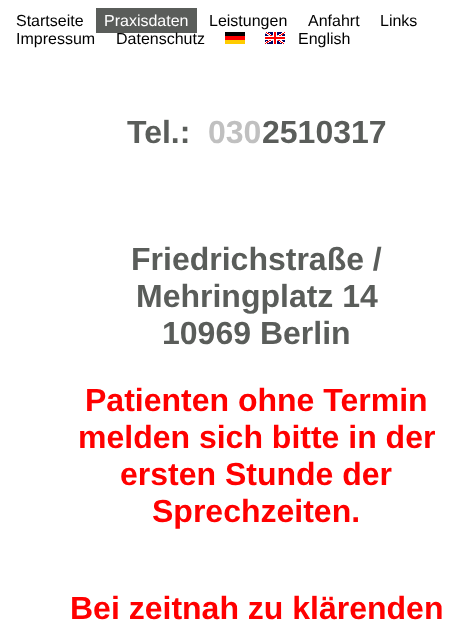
async function draw(canvas) {
  canvas.width = 473
  canvas.height = 638
  const ctx = canvas.getContext('2d')
  ctx.miterLimit = 4
  ctx.fontKerning = 'normal'
  async function loadImage(src) {
    const img = new Image()
    img.src = src
    await img.decode()
    return img
  }

  ctx.fillStyle = '#fff'
  ctx.fillRect(0, 0, 473, 638)
  ctx.font = '16px Liberation Sans'
  ctx.fillStyle = '#000'
  ctx.fillText('Startseite', 16, 26)
  ctx.fillStyle = '#5a5d5a'
  ctx.fillRect(96, 8, 101, 25)
  ctx.fillStyle = '#fff'
  ctx.fillText('Praxisdaten', 104, 26)
  ctx.fillStyle = '#000'
  ctx.fillText('Leistungen', 209, 26)
  ctx.fillText('Anfahrt', 308, 26)
  ctx.fillText('Links', 380, 26)
  ctx.fillText('Impressum', 16, 44)
  ctx.fillText('Datenschutz', 116, 44)
  ctx.drawImage(await loadImage('image0.png'), 225, 32, 20, 12)
  ctx.drawImage(await loadImage('image1.png'), 265, 32, 20, 12)
  ctx.fillText('English', 298, 44)
  ctx.font = 'bold 32px Liberation Sans'
  ctx.fillStyle = '#5a5d5a'
  ctx.fillText('Tel.:', 127, 143)
  ctx.fillStyle = '#c0c0c0'
  ctx.fillText('030', 208, 143)
  ctx.fillStyle = '#5a5d5a'
  ctx.fillText('2510317', 262, 143)
  ctx.fillText('Friedrichstraße /', 131, 270)
  ctx.fillText('Mehringplatz 14', 136, 307)
  ctx.fillText('10969 Berlin', 162, 344)
  ctx.fillStyle = '#f00'
  ctx.fillText('Patienten ohne Termin', 85, 411)
  ctx.fillText('melden sich bitte in der', 78, 448)
  ctx.fillText('ersten Stunde der', 120, 485)
  ctx.fillText('Sprechzeiten.', 152, 522)
  ctx.fillText('Bei zeitnah zu klärenden', 70, 619)
}

draw(document.querySelector('canvas'))
